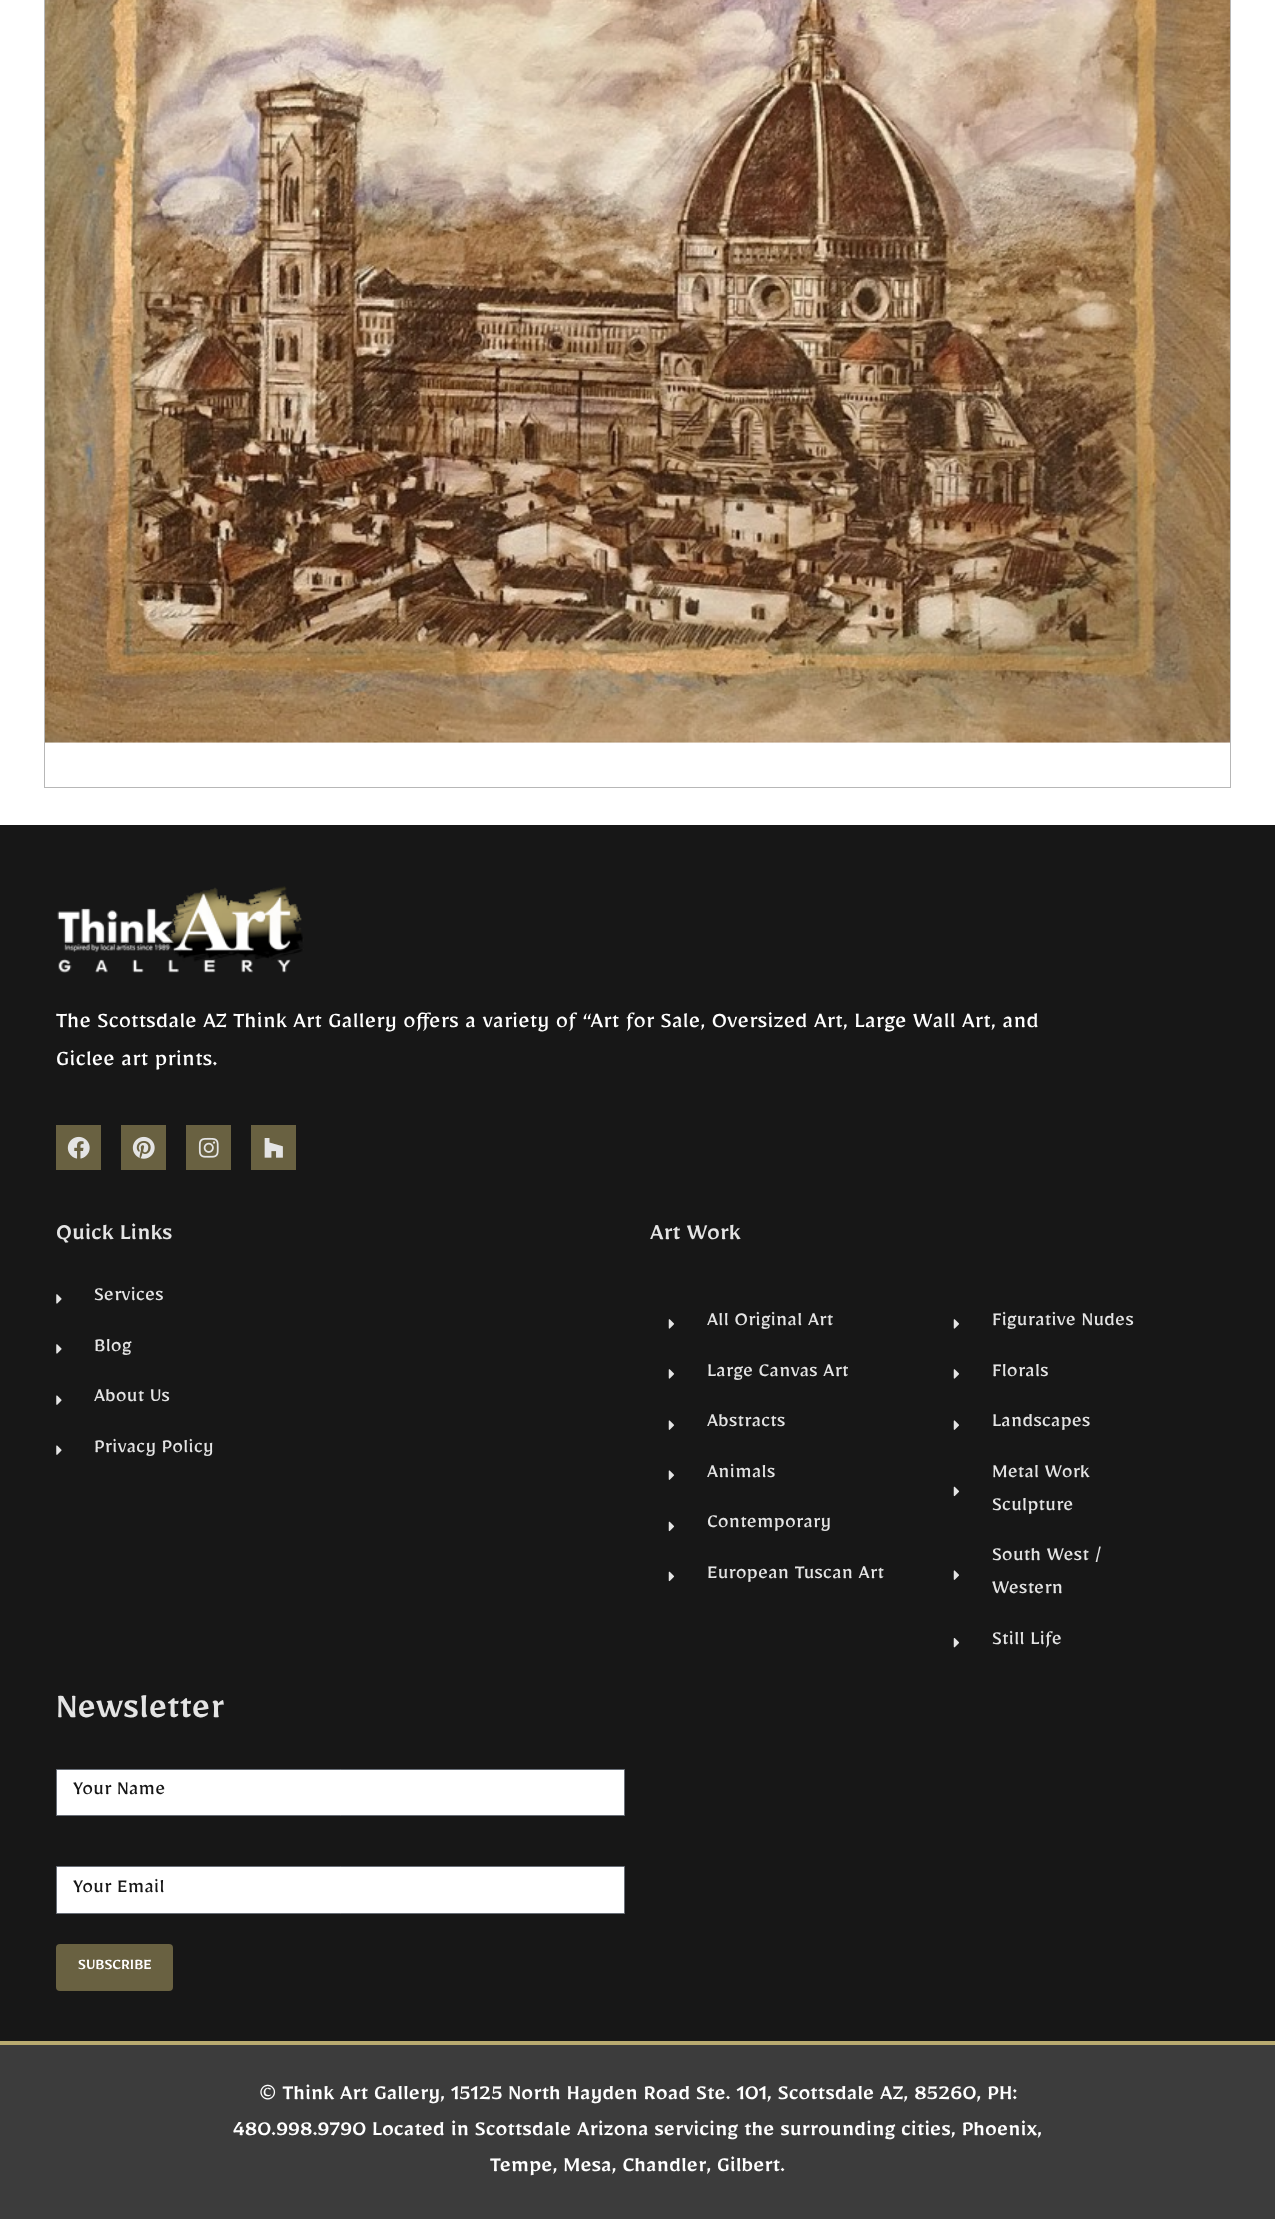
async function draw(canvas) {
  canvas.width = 1275
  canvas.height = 2219
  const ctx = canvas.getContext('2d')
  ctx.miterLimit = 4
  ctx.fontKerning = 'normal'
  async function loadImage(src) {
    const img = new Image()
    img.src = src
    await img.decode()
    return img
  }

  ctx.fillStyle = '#fff'
  ctx.fillRect(0, 0, 1275, 2219)
  ctx.strokeStyle = '#b7b7b7'
  ctx.strokeRect(44.5, -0.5, 1186, 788)
  ctx.drawImage(await loadImage('image0.png'), 45, 0, 1185, 743)
  ctx.fillStyle = '#171717'
  ctx.fillRect(0, 825, 1275, 1216)
  ctx.drawImage(await loadImage('image1.png'), 57, 886, 247, 87)
  ctx.font = '25px Mirza'
  ctx.fillStyle = '#fff'
  ctx.fillText('The Scottsdale AZ Think Art Gallery offers a variety of “Art for Sale, Oversized Art, Large Wall Art, and', 56, 1027)
  ctx.fillText('Giclee art prints.', 56, 1065)
  ctx.fillStyle = '#696141'
  ctx.fillRect(56, 1125, 45, 45)
  ctx.drawImage(await loadImage('image2.png'), 67, 1136, 23, 23)
  ctx.fillRect(121, 1125, 45, 45)
  ctx.drawImage(await loadImage('image3.png'), 132, 1136, 23, 23)
  ctx.fillRect(186, 1125, 45, 45)
  ctx.drawImage(await loadImage('image4.png'), 198, 1137, 21, 21)
  ctx.fillRect(251, 1125, 45, 45)
  ctx.drawImage(await loadImage('image5.png'), 264, 1138, 19, 20)
  ctx.font = '500 26px Mirza'
  ctx.fillStyle = '#e4e4e4'
  ctx.fillText('Quick Links', 56, 1239)
  ctx.drawImage(await loadImage('image6.png'), 56, 1294, 6, 10)
  ctx.font = '22px Mirza'
  ctx.fillText('Services', 94, 1300)
  ctx.drawImage(await loadImage('image6.png'), 56, 1344, 6, 10)
  ctx.fillText('Blog', 94, 1351)
  ctx.drawImage(await loadImage('image7.png'), 56, 1395, 6, 10)
  ctx.fillText('About Us', 94, 1401)
  ctx.drawImage(await loadImage('image7.png'), 56, 1445, 6, 10)
  ctx.fillText('Privacy Policy', 94, 1452)
  ctx.font = '500 26px Mirza'
  ctx.fillText('Art Work', 650, 1239)
  ctx.drawImage(await loadImage('image8.png'), 668, 1319, 7, 10)
  ctx.font = '22px Mirza'
  ctx.fillText('All Original Art', 707, 1325)
  ctx.drawImage(await loadImage('image8.png'), 668, 1369, 7, 10)
  ctx.fillText('Large Canvas Art', 707, 1376)
  ctx.drawImage(await loadImage('image9.png'), 668, 1420, 7, 10)
  ctx.fillText('Abstracts', 707, 1426)
  ctx.drawImage(await loadImage('image9.png'), 668, 1470, 7, 10)
  ctx.fillText('Animals', 707, 1477)
  ctx.drawImage(await loadImage('image10.png'), 668, 1521, 7, 11)
  ctx.fillText('Contemporary', 707, 1527)
  ctx.drawImage(await loadImage('image10.png'), 668, 1571, 7, 11)
  ctx.fillText('European Tuscan Art', 707, 1578)
  ctx.drawImage(await loadImage('image8.png'), 953, 1319, 7, 10)
  ctx.fillText('Figurative Nudes', 992, 1325)
  ctx.drawImage(await loadImage('image8.png'), 953, 1369, 7, 10)
  ctx.fillText('Florals', 992, 1376)
  ctx.drawImage(await loadImage('image9.png'), 953, 1420, 7, 10)
  ctx.fillText('Landscapes', 992, 1426)
  ctx.drawImage(await loadImage('image10.png'), 953, 1486, 7, 11)
  ctx.fillText('Metal Work', 992, 1477)
  ctx.fillText('Sculpture', 992, 1510)
  ctx.drawImage(await loadImage('image9.png'), 953, 1570, 7, 10)
  ctx.fillText('South West /', 992, 1560)
  ctx.fillText('Western', 992, 1593)
  ctx.drawImage(await loadImage('image11.png'), 953, 1638, 7, 10)
  ctx.fillText('Still Life', 992, 1644)
  ctx.font = '500 40px Mirza'
  ctx.fillText('Newsletter', 56, 1717)
  ctx.fillStyle = '#fff'
  ctx.beginPath()
  ctx.rect(56.5, 1769.5, 568, 46)
  ctx.fill()
  ctx.strokeStyle = '#686e77'
  ctx.stroke()
  ctx.font = '22px Mirza'
  ctx.fillStyle = '#171717'
  ctx.fillText('Your Name', 73, 1794)
  ctx.fillStyle = '#fff'
  ctx.beginPath()
  ctx.rect(56.5, 1866.5, 568, 47)
  ctx.fill()
  ctx.stroke()
  ctx.fillStyle = '#171717'
  ctx.fillText('Your Email', 73, 1892)
  ctx.fillStyle = '#696141'
  ctx.beginPath()
  ctx.roundRect(56, 1944, 117, 47, 4)
  ctx.fill()
  ctx.font = '500 17.5px Mirza'
  ctx.fillStyle = '#fff'
  ctx.fillText('SUBSCRIBE', 78, 1969)
  ctx.fillStyle = '#3c3c3c'
  ctx.fillRect(0, 2045, 1275, 174)
  ctx.fillStyle = '#b8aa70'
  ctx.fillRect(0, 2041, 1275, 4)
  ctx.font = '500 24px Mirza'
  ctx.fillStyle = '#fff'
  ctx.fillText('© Think Art Gallery, 15125 North Hayden Road Ste. 101, Scottsdale AZ, 85260, PH:', 259, 2099)
  ctx.fillText('480.998.9790 Located in Scottsdale Arizona servicing the surrounding cities, Phoenix,', 233, 2135)
  ctx.fillText('Tempe, Mesa, Chandler, Gilbert.', 490, 2171)
}

draw(document.querySelector('canvas'))
